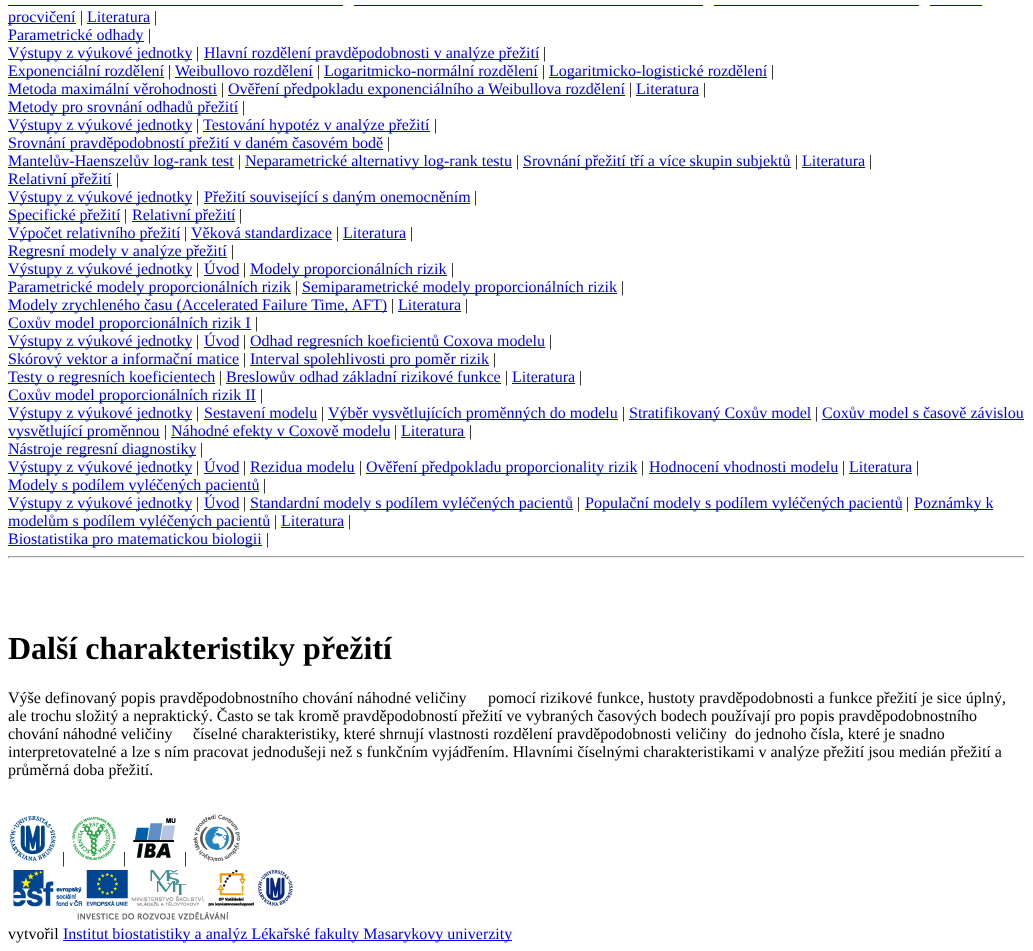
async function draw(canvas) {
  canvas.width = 1033
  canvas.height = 951
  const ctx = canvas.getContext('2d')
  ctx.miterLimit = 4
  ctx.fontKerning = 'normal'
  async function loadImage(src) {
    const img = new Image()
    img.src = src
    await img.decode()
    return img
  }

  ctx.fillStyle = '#fff'
  ctx.fillRect(0, 0, 1033, 951)
  ctx.fillStyle = '#00e'
  ctx.fillRect(8, 5, 335, 1)
  ctx.fillRect(354, 5, 349, 1)
  ctx.fillRect(714, 5, 205, 1)
  ctx.fillRect(8, 23, 68, 1)
  ctx.font = '16px Liberation Serif'
  ctx.fillText('procvičení', 8, 22)
  ctx.fillRect(930, 5, 52, 1)
  ctx.fillStyle = '#000'
  ctx.fillText('|', 80, 22)
  ctx.fillStyle = '#00e'
  ctx.fillText('Literatura', 87, 22)
  ctx.fillRect(87, 23, 63, 1)
  ctx.fillStyle = '#000'
  ctx.fillText('|', 154, 22)
  ctx.fillStyle = '#00e'
  ctx.fillRect(8, 41, 136, 1)
  ctx.fillText('Parametrické odhady', 8, 40)
  ctx.fillStyle = '#000'
  ctx.fillText('|', 148, 40)
  ctx.fillStyle = '#00e'
  ctx.fillRect(8, 59, 184, 1)
  ctx.fillText('Výstupy z výukové jednotky', 8, 58)
  ctx.fillStyle = '#000'
  ctx.fillText('|', 196, 58)
  ctx.fillStyle = '#00e'
  ctx.fillRect(204, 59, 335, 1)
  ctx.fillText('Hlavní rozdělení pravděpodobnosti v analýze přežití', 204, 58)
  ctx.fillStyle = '#000'
  ctx.fillText('|', 543, 58)
  ctx.fillStyle = '#00e'
  ctx.fillRect(8, 77, 156, 1)
  ctx.fillText('Exponenciální rozdělení', 8, 76)
  ctx.fillStyle = '#000'
  ctx.fillText('|', 168, 76)
  ctx.fillStyle = '#00e'
  ctx.fillText('Weibullovo rozdělení', 175, 76)
  ctx.fillRect(175, 77, 138, 1)
  ctx.fillStyle = '#000'
  ctx.fillText('|', 317, 76)
  ctx.fillStyle = '#00e'
  ctx.fillRect(324, 77, 214, 1)
  ctx.fillText('Logaritmicko-normální rozdělení', 324, 76)
  ctx.fillStyle = '#000'
  ctx.fillText('|', 542, 76)
  ctx.fillStyle = '#00e'
  ctx.fillRect(549, 77, 218, 1)
  ctx.fillText('Logaritmicko-logistické rozdělení', 549, 76)
  ctx.fillStyle = '#000'
  ctx.fillText('|', 771, 76)
  ctx.fillStyle = '#00e'
  ctx.fillText('Metoda maximální věrohodnosti', 8, 94)
  ctx.fillRect(8, 95, 209, 1)
  ctx.fillStyle = '#000'
  ctx.fillText('|', 221, 94)
  ctx.fillStyle = '#00e'
  ctx.fillRect(228, 95, 397, 1)
  ctx.fillText('Ověření předpokladu exponenciálního a Weibullova rozdělení', 228, 94)
  ctx.fillStyle = '#000'
  ctx.fillText('|', 629, 94)
  ctx.fillStyle = '#00e'
  ctx.fillText('Literatura', 636, 94)
  ctx.fillRect(636, 95, 63, 1)
  ctx.fillStyle = '#000'
  ctx.fillText('|', 703, 94)
  ctx.fillStyle = '#00e'
  ctx.fillRect(8, 113, 230, 1)
  ctx.fillText('Metody pro srovnání odhadů přežití', 8, 112)
  ctx.fillStyle = '#000'
  ctx.fillText('|', 242, 112)
  ctx.fillStyle = '#00e'
  ctx.fillRect(8, 131, 184, 1)
  ctx.fillText('Výstupy z výukové jednotky', 8, 130)
  ctx.fillStyle = '#000'
  ctx.fillText('|', 196, 130)
  ctx.fillStyle = '#00e'
  ctx.fillRect(203, 131, 227, 1)
  ctx.fillText('Testování hypotéz v analýze přežití', 203, 130)
  ctx.fillStyle = '#000'
  ctx.fillText('|', 434, 130)
  ctx.fillStyle = '#00e'
  ctx.fillRect(8, 149, 375, 1)
  ctx.fillText('Srovnání pravděpodobností přežití v daném časovém bodě', 8, 148)
  ctx.fillStyle = '#000'
  ctx.fillText('|', 387, 148)
  ctx.fillStyle = '#00e'
  ctx.fillRect(8, 167, 226, 1)
  ctx.fillText('Mantelův-Haenszelův log-rank test', 8, 166)
  ctx.fillStyle = '#000'
  ctx.fillText('|', 238, 166)
  ctx.fillStyle = '#00e'
  ctx.fillRect(245, 167, 267, 1)
  ctx.fillText('Neparametrické alternativy log-rank testu', 245, 166)
  ctx.fillStyle = '#000'
  ctx.fillText('|', 516, 166)
  ctx.fillStyle = '#00e'
  ctx.fillRect(523, 167, 268, 1)
  ctx.fillText('Srovnání přežití tří a více skupin subjektů', 523, 166)
  ctx.fillStyle = '#000'
  ctx.fillText('|', 795, 166)
  ctx.fillStyle = '#00e'
  ctx.fillText('Literatura', 802, 166)
  ctx.fillRect(802, 167, 63, 1)
  ctx.fillStyle = '#000'
  ctx.fillText('|', 869, 166)
  ctx.fillStyle = '#00e'
  ctx.fillRect(8, 185, 104, 1)
  ctx.fillText('Relativní přežití', 8, 184)
  ctx.fillStyle = '#000'
  ctx.fillText('|', 116, 184)
  ctx.fillStyle = '#00e'
  ctx.fillRect(8, 203, 184, 1)
  ctx.fillText('Výstupy z výukové jednotky', 8, 202)
  ctx.fillStyle = '#000'
  ctx.fillText('|', 196, 202)
  ctx.fillStyle = '#00e'
  ctx.fillRect(204, 203, 266, 1)
  ctx.fillText('Přežití související s daným onemocněním', 204, 202)
  ctx.fillStyle = '#000'
  ctx.fillText('|', 474, 202)
  ctx.fillStyle = '#00e'
  ctx.fillRect(8, 221, 112, 1)
  ctx.fillText('Specifické přežití', 8, 220)
  ctx.fillStyle = '#000'
  ctx.fillText('|', 124, 220)
  ctx.fillStyle = '#00e'
  ctx.fillRect(132, 221, 103, 1)
  ctx.fillText('Relativní přežití', 132, 220)
  ctx.fillStyle = '#000'
  ctx.fillText('|', 239, 220)
  ctx.fillStyle = '#00e'
  ctx.fillRect(8, 239, 172, 1)
  ctx.fillText('Výpočet relativního přežití', 8, 238)
  ctx.fillStyle = '#000'
  ctx.fillText('|', 184, 238)
  ctx.fillStyle = '#00e'
  ctx.fillText('Věková standardizace', 191, 238)
  ctx.fillRect(191, 239, 141, 1)
  ctx.fillStyle = '#000'
  ctx.fillText('|', 336, 238)
  ctx.fillStyle = '#00e'
  ctx.fillText('Literatura', 343, 238)
  ctx.fillRect(343, 239, 63, 1)
  ctx.fillStyle = '#000'
  ctx.fillText('|', 410, 238)
  ctx.fillStyle = '#00e'
  ctx.fillRect(8, 257, 219, 1)
  ctx.fillText('Regresní modely v analýze přežití', 8, 256)
  ctx.fillStyle = '#000'
  ctx.fillText('|', 231, 256)
  ctx.fillStyle = '#00e'
  ctx.fillRect(8, 275, 184, 1)
  ctx.fillText('Výstupy z výukové jednotky', 8, 274)
  ctx.fillStyle = '#000'
  ctx.fillText('|', 196, 274)
  ctx.fillStyle = '#00e'
  ctx.fillText('Úvod', 204, 274)
  ctx.fillRect(204, 275, 35, 1)
  ctx.fillStyle = '#000'
  ctx.fillText('|', 243, 274)
  ctx.fillStyle = '#00e'
  ctx.fillRect(250, 275, 197, 1)
  ctx.fillText('Modely proporcionálních rizik', 250, 274)
  ctx.fillStyle = '#000'
  ctx.fillText('|', 451, 274)
  ctx.fillStyle = '#00e'
  ctx.fillRect(8, 293, 283, 1)
  ctx.fillText('Parametrické modely proporcionálních rizik', 8, 292)
  ctx.fillStyle = '#000'
  ctx.fillText('|', 295, 292)
  ctx.fillStyle = '#00e'
  ctx.fillRect(302, 293, 315, 1)
  ctx.fillText('Semiparametrické modely proporcionálních rizik', 302, 292)
  ctx.fillStyle = '#000'
  ctx.fillText('|', 621, 292)
  ctx.fillStyle = '#00e'
  ctx.fillRect(8, 311, 379, 1)
  ctx.fillText('Modely zrychleného času (Accelerated Failure Time, AFT)', 8, 310)
  ctx.fillStyle = '#000'
  ctx.fillText('|', 391, 310)
  ctx.fillStyle = '#00e'
  ctx.fillText('Literatura', 398, 310)
  ctx.fillRect(398, 311, 63, 1)
  ctx.fillStyle = '#000'
  ctx.fillText('|', 465, 310)
  ctx.fillStyle = '#00e'
  ctx.fillRect(8, 329, 243, 1)
  ctx.fillText('Coxův model proporcionálních rizik I', 8, 328)
  ctx.fillStyle = '#000'
  ctx.fillText('|', 255, 328)
  ctx.fillStyle = '#00e'
  ctx.fillRect(8, 347, 184, 1)
  ctx.fillText('Výstupy z výukové jednotky', 8, 346)
  ctx.fillStyle = '#000'
  ctx.fillText('|', 196, 346)
  ctx.fillStyle = '#00e'
  ctx.fillText('Úvod', 204, 346)
  ctx.fillRect(204, 347, 35, 1)
  ctx.fillStyle = '#000'
  ctx.fillText('|', 243, 346)
  ctx.fillStyle = '#00e'
  ctx.fillRect(250, 347, 295, 1)
  ctx.fillText('Odhad regresních koeficientů Coxova modelu', 250, 346)
  ctx.fillStyle = '#000'
  ctx.fillText('|', 549, 346)
  ctx.fillStyle = '#00e'
  ctx.fillRect(8, 365, 231, 1)
  ctx.fillText('Skórový vektor a informační matice', 8, 364)
  ctx.fillStyle = '#000'
  ctx.fillText('|', 243, 364)
  ctx.fillStyle = '#00e'
  ctx.fillRect(250, 365, 239, 1)
  ctx.fillText('Interval spolehlivosti pro poměr rizik', 250, 364)
  ctx.fillStyle = '#000'
  ctx.fillText('|', 493, 364)
  ctx.fillStyle = '#00e'
  ctx.fillRect(8, 383, 207, 1)
  ctx.fillText('Testy o regresních koeficientech', 8, 382)
  ctx.fillStyle = '#000'
  ctx.fillText('|', 219, 382)
  ctx.fillStyle = '#00e'
  ctx.fillText('Breslowův odhad základní rizikové funkce', 226, 382)
  ctx.fillRect(226, 383, 275, 1)
  ctx.fillStyle = '#000'
  ctx.fillText('|', 505, 382)
  ctx.fillStyle = '#00e'
  ctx.fillText('Literatura', 512, 382)
  ctx.fillRect(512, 383, 63, 1)
  ctx.fillStyle = '#000'
  ctx.fillText('|', 579, 382)
  ctx.fillStyle = '#00e'
  ctx.fillRect(8, 401, 248, 1)
  ctx.fillText('Coxův model proporcionálních rizik II', 8, 400)
  ctx.fillStyle = '#000'
  ctx.fillText('|', 260, 400)
  ctx.fillStyle = '#00e'
  ctx.fillRect(8, 419, 184, 1)
  ctx.fillText('Výstupy z výukové jednotky', 8, 418)
  ctx.fillStyle = '#000'
  ctx.fillText('|', 196, 418)
  ctx.fillStyle = '#00e'
  ctx.fillText('Sestavení modelu', 204, 418)
  ctx.fillRect(204, 419, 113, 1)
  ctx.fillStyle = '#000'
  ctx.fillText('|', 321, 418)
  ctx.fillStyle = '#00e'
  ctx.fillRect(328, 419, 290, 1)
  ctx.fillText('Výběr vysvětlujících proměnných do modelu', 328, 418)
  ctx.fillStyle = '#000'
  ctx.fillText('|', 622, 418)
  ctx.fillStyle = '#00e'
  ctx.fillRect(629, 419, 182, 1)
  ctx.fillText('Stratifikovaný Coxův model', 629, 418)
  ctx.fillStyle = '#000'
  ctx.fillText('|', 815, 418)
  ctx.fillStyle = '#00e'
  ctx.fillText('Coxův model s časově závislou', 822, 418)
  ctx.fillRect(822, 419, 202, 1)
  ctx.fillRect(8, 437, 152, 1)
  ctx.fillText('vysvětlující proměnnou', 8, 436)
  ctx.fillStyle = '#000'
  ctx.fillText('|', 164, 436)
  ctx.fillStyle = '#00e'
  ctx.fillRect(171, 437, 219, 1)
  ctx.fillText('Náhodné efekty v Coxově modelu', 171, 436)
  ctx.fillStyle = '#000'
  ctx.fillText('|', 394, 436)
  ctx.fillStyle = '#00e'
  ctx.fillText('Literatura', 401, 436)
  ctx.fillRect(401, 437, 64, 1)
  ctx.fillStyle = '#000'
  ctx.fillText('|', 469, 436)
  ctx.fillStyle = '#00e'
  ctx.fillRect(8, 455, 188, 1)
  ctx.fillText('Nástroje regresní diagnostiky', 8, 454)
  ctx.fillStyle = '#000'
  ctx.fillText('|', 200, 454)
  ctx.fillStyle = '#00e'
  ctx.fillRect(8, 473, 184, 1)
  ctx.fillText('Výstupy z výukové jednotky', 8, 472)
  ctx.fillStyle = '#000'
  ctx.fillText('|', 196, 472)
  ctx.fillStyle = '#00e'
  ctx.fillText('Úvod', 204, 472)
  ctx.fillRect(204, 473, 35, 1)
  ctx.fillStyle = '#000'
  ctx.fillText('|', 243, 472)
  ctx.fillStyle = '#00e'
  ctx.fillText('Rezidua modelu', 250, 472)
  ctx.fillRect(250, 473, 105, 1)
  ctx.fillStyle = '#000'
  ctx.fillText('|', 359, 472)
  ctx.fillStyle = '#00e'
  ctx.fillRect(366, 473, 271, 1)
  ctx.fillText('Ověření předpokladu proporcionality rizik', 366, 472)
  ctx.fillStyle = '#000'
  ctx.fillText('|', 641, 472)
  ctx.fillStyle = '#00e'
  ctx.fillText('Hodnocení vhodnosti modelu', 649, 472)
  ctx.fillRect(649, 473, 189, 1)
  ctx.fillStyle = '#000'
  ctx.fillText('|', 842, 472)
  ctx.fillStyle = '#00e'
  ctx.fillText('Literatura', 849, 472)
  ctx.fillRect(849, 473, 63, 1)
  ctx.fillStyle = '#000'
  ctx.fillText('|', 916, 472)
  ctx.fillStyle = '#00e'
  ctx.fillRect(8, 491, 251, 1)
  ctx.fillText('Modely s podílem vyléčených pacientů', 8, 490)
  ctx.fillStyle = '#000'
  ctx.fillText('|', 263, 490)
  ctx.fillStyle = '#00e'
  ctx.fillRect(8, 509, 184, 1)
  ctx.fillText('Výstupy z výukové jednotky', 8, 508)
  ctx.fillStyle = '#000'
  ctx.fillText('|', 196, 508)
  ctx.fillStyle = '#00e'
  ctx.fillText('Úvod', 204, 508)
  ctx.fillRect(204, 509, 35, 1)
  ctx.fillStyle = '#000'
  ctx.fillText('|', 243, 508)
  ctx.fillStyle = '#00e'
  ctx.fillRect(250, 509, 323, 1)
  ctx.fillText('Standardní modely s podílem vyléčených pacientů', 250, 508)
  ctx.fillStyle = '#000'
  ctx.fillText('|', 577, 508)
  ctx.fillStyle = '#00e'
  ctx.fillRect(585, 509, 317, 1)
  ctx.fillText('Populační modely s podílem vyléčených pacientů', 585, 508)
  ctx.fillStyle = '#000'
  ctx.fillText('|', 906, 508)
  ctx.fillStyle = '#00e'
  ctx.fillRect(914, 509, 79, 1)
  ctx.fillText('Poznámky k', 914, 508)
  ctx.fillRect(8, 527, 262, 1)
  ctx.fillText('modelům s podílem vyléčených pacientů', 8, 526)
  ctx.fillStyle = '#000'
  ctx.fillText('|', 274, 526)
  ctx.fillStyle = '#00e'
  ctx.fillText('Literatura', 281, 526)
  ctx.fillRect(281, 527, 63, 1)
  ctx.fillStyle = '#000'
  ctx.fillText('|', 348, 526)
  ctx.fillStyle = '#00e'
  ctx.fillRect(8, 545, 254, 1)
  ctx.fillText('Biostatistika pro matematickou biologii', 8, 544)
  ctx.fillStyle = '#000'
  ctx.fillText('|', 266, 544)
  ctx.fillStyle = '#9f9f9f'
  ctx.fillRect(8, 556, 1017, 1)
  ctx.fillStyle = '#eee'
  ctx.fillRect(1024, 556, 1, 2)
  ctx.fillRect(8, 557, 1017, 1)
  ctx.fillStyle = '#9f9f9f'
  ctx.fillRect(8, 556, 1, 2)
  ctx.font = 'bold 32px Liberation Serif'
  ctx.fillStyle = '#000'
  ctx.fillText('Další charakteristiky přežití', 8, 659)
  ctx.font = '16px Liberation Serif'
  ctx.fillText('Výše definovaný popis pravděpodobnostního chování náhodné veličiny', 8, 703)
  ctx.fillText('pomocí rizikové funkce, hustoty pravděpodobnosti a funkce přežití je sice úplný,', 488, 703)
  ctx.fillText('ale trochu složitý a nepraktický. Často se tak kromě pravděpodobností přežití ve vybraných časových bodech používají pro popis pravděpodobnostního', 8, 721)
  ctx.fillText('chování náhodné veličiny', 8, 739)
  ctx.fillText('číselné charakteristiky, které shrnují vlastnosti rozdělení pravděpodobnosti veličiny', 193, 739)
  ctx.fillText('do jednoho čísla, které je snadno', 735, 739)
  ctx.fillText('interpretovatelné a lze s ním pracovat jednodušeji než s funkčním vyjádřením. Hlavními číselnými charakteristikami v analýze přežití jsou medián přežití a', 8, 757)
  ctx.fillText('průměrná doba přežití.', 8, 775)
  ctx.drawImage(await loadImage('image0.png'), 10, 816, 46, 45)
  ctx.fillText('|', 62, 863)
  ctx.drawImage(await loadImage('image1.png'), 72, 816, 44, 45)
  ctx.fillText('|', 123, 863)
  ctx.drawImage(await loadImage('image2.png'), 133, 818, 43, 40)
  ctx.fillText('|', 184, 863)
  ctx.drawImage(await loadImage('image3.png'), 193, 814, 47, 48)
  ctx.drawImage(await loadImage('image4.png'), 13, 870, 280, 50)
  ctx.fillText('vytvořil', 8, 939)
  ctx.fillStyle = '#00e'
  ctx.fillRect(63, 940, 449, 1)
  ctx.fillText('Institut biostatistiky a analýz Lékařské fakulty Masarykovy univerzity', 63, 939)
}

draw(document.querySelector('canvas'))
